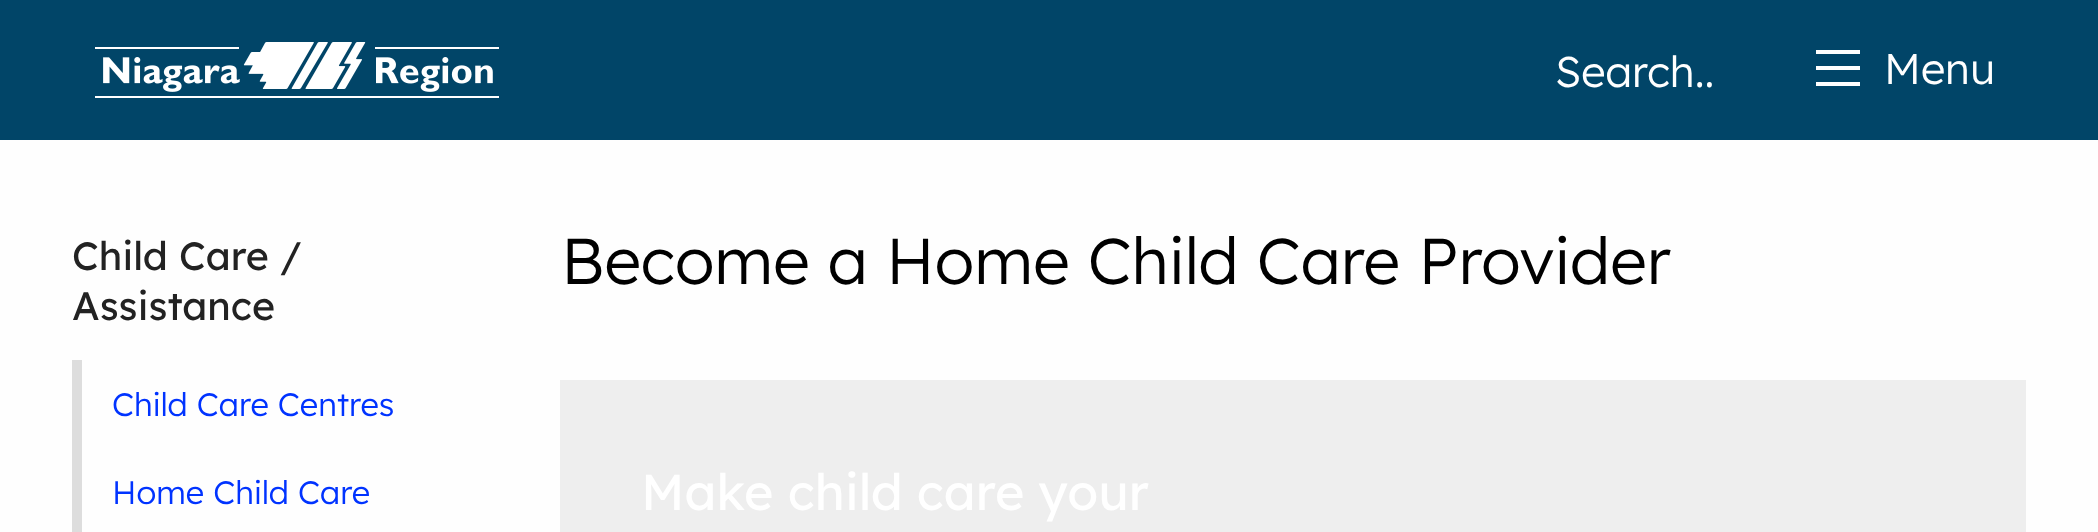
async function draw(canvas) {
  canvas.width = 2098
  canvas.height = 532
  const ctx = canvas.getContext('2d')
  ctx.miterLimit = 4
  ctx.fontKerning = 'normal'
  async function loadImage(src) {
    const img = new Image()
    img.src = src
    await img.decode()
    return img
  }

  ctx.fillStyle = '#fefefe'
  ctx.fillRect(0, 0, 2098, 532)
  ctx.fillStyle = '#014568'
  ctx.fillRect(0, 0, 2098, 140)
  ctx.drawImage(await loadImage('image0.png'), 95, 42, 404, 56)
  ctx.font = '43px Lexend'
  ctx.fillStyle = '#fff'
  ctx.fillText('Search..', 1555, 87)
  ctx.fillRect(1816, 50, 44, 4)
  ctx.fillRect(1816, 66, 44, 4)
  ctx.fillText('Menu', 1884, 84)
  ctx.fillRect(1816, 82, 44, 4)
  ctx.font = '500 39.5px Lexend'
  ctx.fillStyle = '#222'
  ctx.fillText('Child Care /', 72, 270)
  ctx.fillText('Assistance', 72, 320)
  ctx.fillStyle = '#ddd'
  ctx.fillRect(72, 360, 10, 172)
  ctx.font = '32.5px Lexend'
  ctx.fillStyle = '#03f'
  ctx.fillText('Child Care Centres', 112, 416)
  ctx.fillText('Home Child Care', 112, 504)
  ctx.font = '64.75px Lexend'
  ctx.fillStyle = '#000'
  ctx.fillText('Become a Home Child Care Provider', 561, 284)
  ctx.fillStyle = '#eee'
  ctx.fillRect(560, 380, 1466, 152)
  ctx.font = '500 50.4px Lexend'
  ctx.fillStyle = '#fff'
  ctx.fillText('Make child care your', 641, 510)
}

draw(document.querySelector('canvas'))
